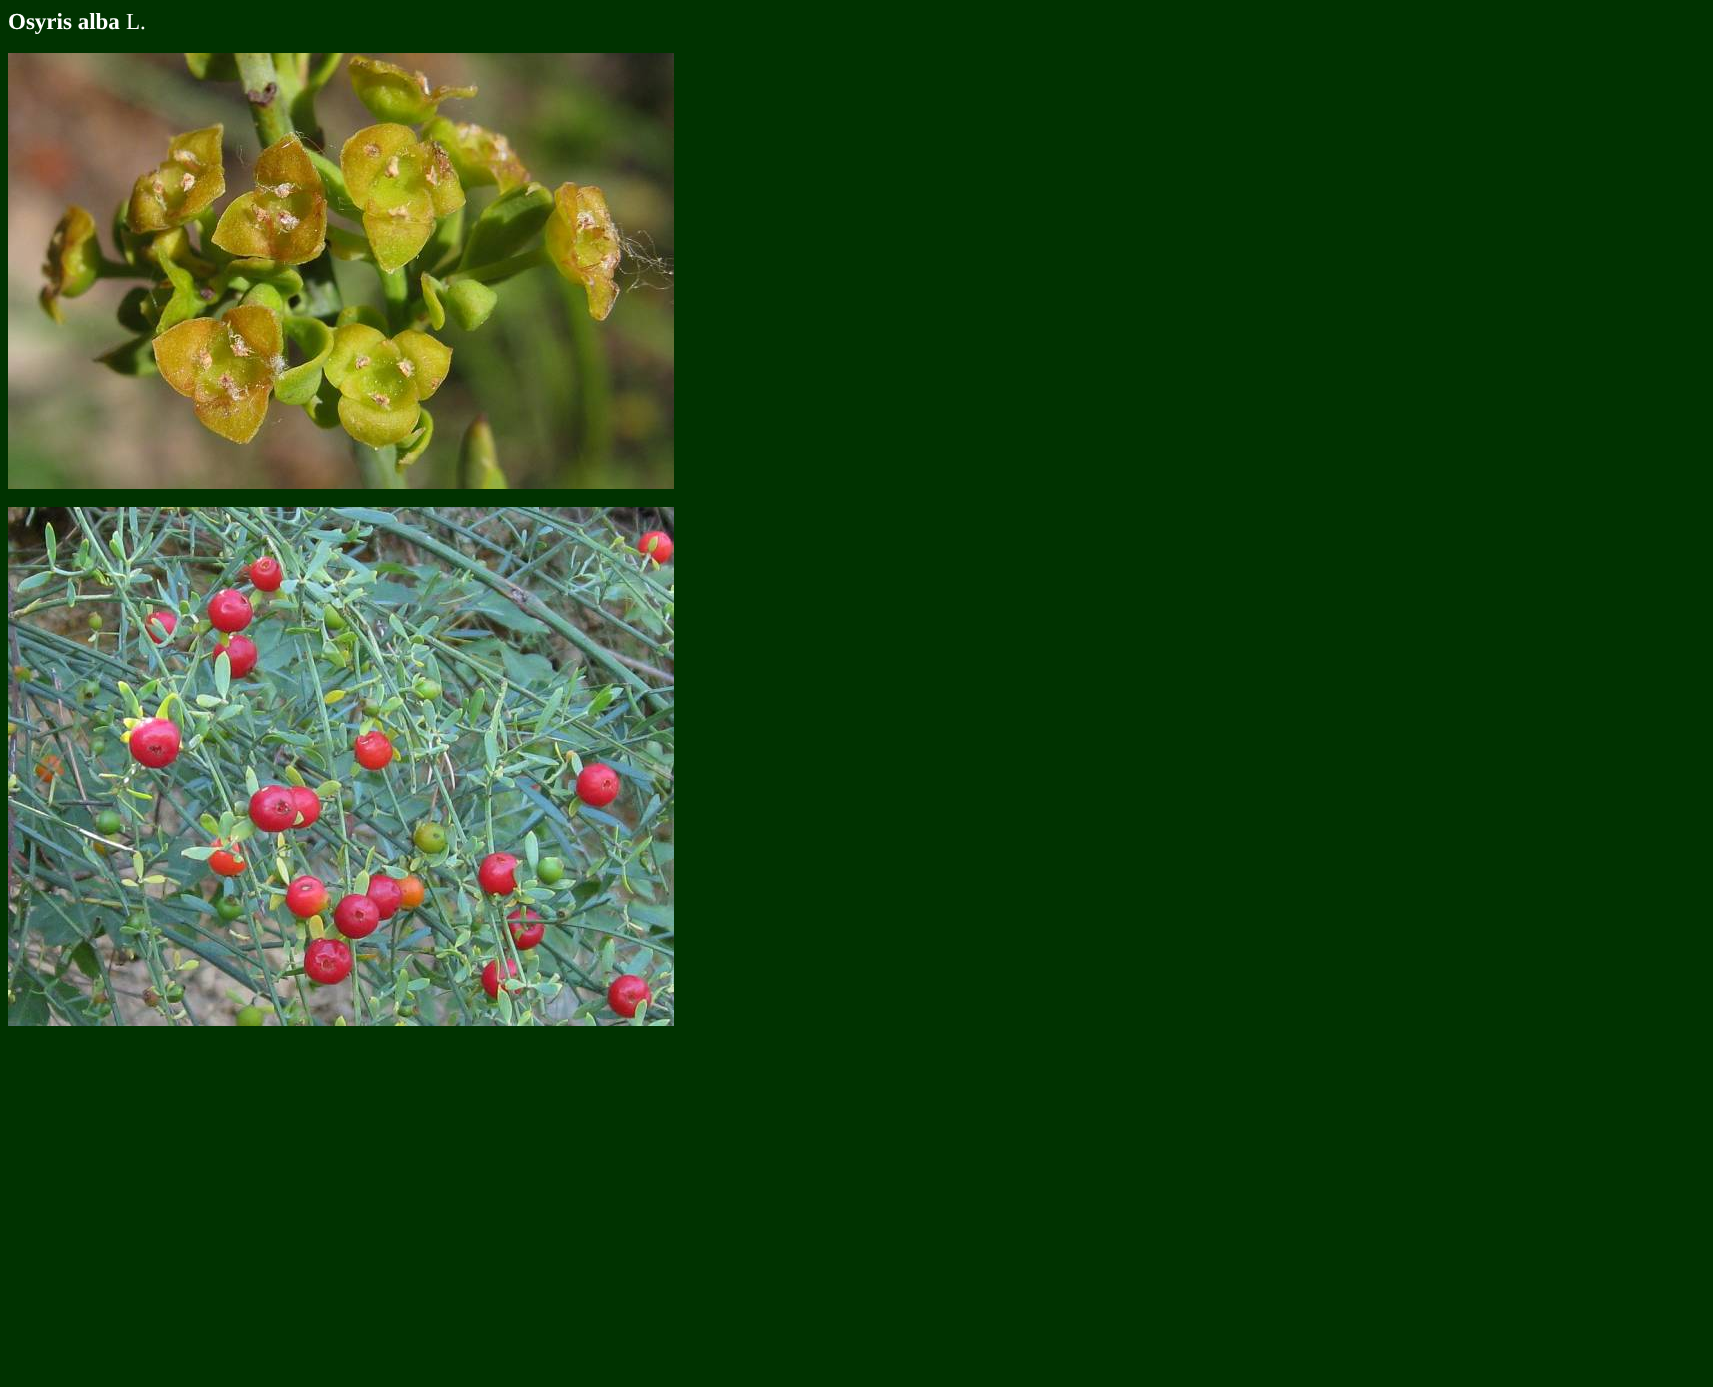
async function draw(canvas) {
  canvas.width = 1713
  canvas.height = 1387
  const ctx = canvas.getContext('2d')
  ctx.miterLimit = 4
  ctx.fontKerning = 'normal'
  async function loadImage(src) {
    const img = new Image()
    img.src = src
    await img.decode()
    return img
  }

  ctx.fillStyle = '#030'
  ctx.fillRect(0, 0, 1713, 1387)
  ctx.font = 'bold 23px Liberation Serif'
  ctx.fillStyle = '#fff'
  ctx.fillText('Osyris alba', 8, 29)
  ctx.font = '23px Liberation Serif'
  ctx.fillText('L.', 126, 29)
  ctx.drawImage(await loadImage('image0.png'), 8, 53, 666, 436)
  ctx.drawImage(await loadImage('image1.png'), 8, 507, 666, 519)
}

draw(document.querySelector('canvas'))
